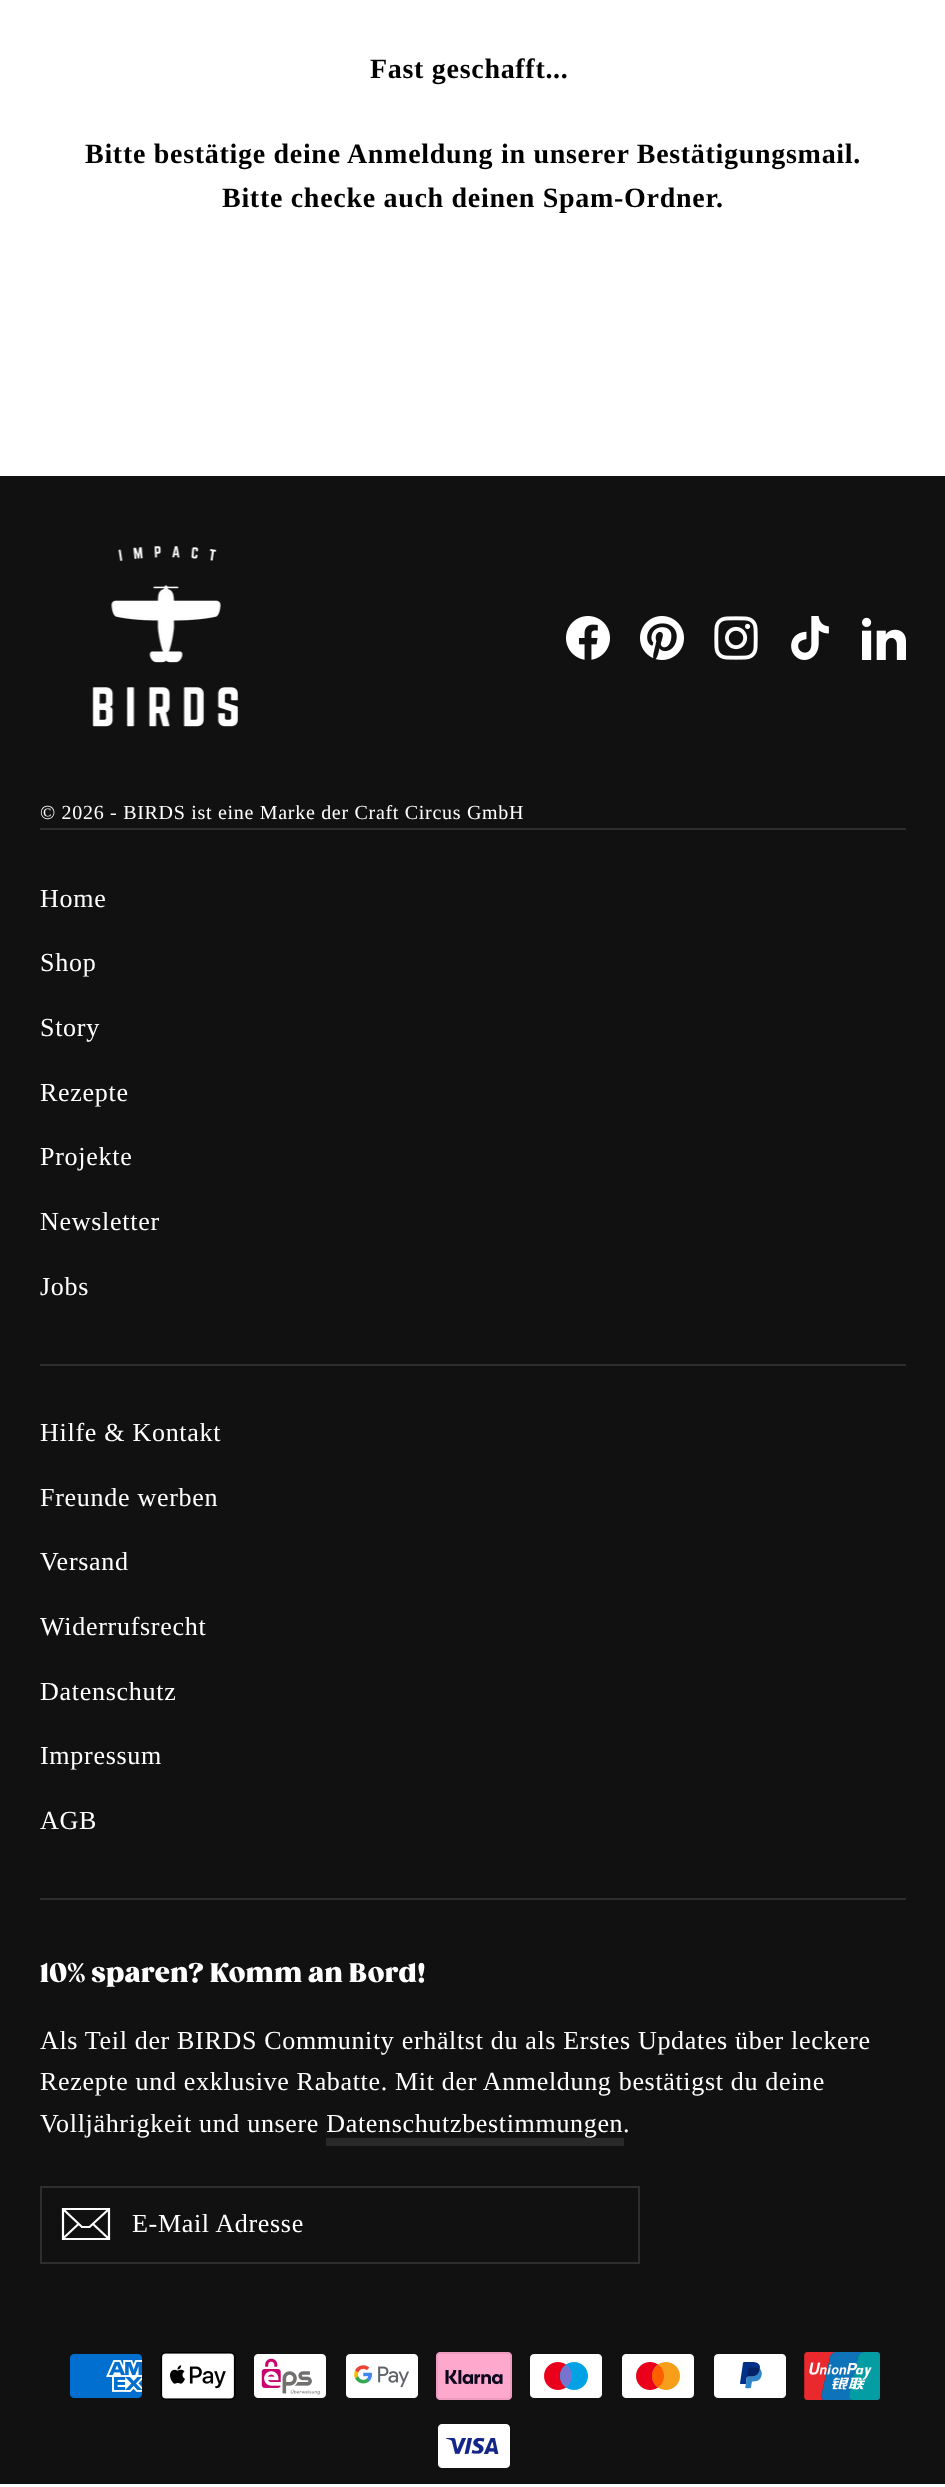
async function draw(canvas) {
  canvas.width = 945
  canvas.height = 2487
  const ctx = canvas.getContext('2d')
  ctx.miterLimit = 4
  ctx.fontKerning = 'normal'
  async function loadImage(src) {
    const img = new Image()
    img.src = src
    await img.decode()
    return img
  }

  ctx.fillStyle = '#fff'
  ctx.fillRect(0, 0, 945, 2487)
  ctx.letterSpacing = '0.7px'
  ctx.font = 'bold 28px Liberation Serif'
  ctx.fillStyle = '#000'
  ctx.fillText('Fast geschafft...', 370, 78)
  ctx.fillText('Bitte bestätige deine Anmeldung in unserer Bestätigungsmail.', 85, 163)
  ctx.fillText('Bitte checke auch deinen Spam-Ordner.', 222, 207)
  ctx.fillStyle = '#111'
  ctx.fillRect(0, 476, 945, 2008)
  ctx.drawImage(await loadImage('image0.png'), 92, 546, 147, 181)
  ctx.drawImage(await loadImage('image1.png'), 566, 616, 44, 44)
  ctx.drawImage(await loadImage('image2.png'), 640, 616, 44, 44)
  ctx.drawImage(await loadImage('image3.png'), 714, 616, 44, 44)
  ctx.drawImage(await loadImage('image4.png'), 791, 616, 38, 44)
  ctx.drawImage(await loadImage('image5.png'), 862, 617, 44, 43)
  ctx.font = '20px Liberation Serif'
  ctx.fillStyle = '#fff'
  ctx.fillText('© 2026 - BIRDS ist eine Marke der Craft Circus GmbH', 40, 819)
  ctx.fillStyle = '#2e2e2e'
  ctx.fillRect(40, 828, 866, 2)
  ctx.font = '26.05px Liberation Serif'
  ctx.fillStyle = '#fff'
  ctx.fillText('Home', 40, 907)
  ctx.fillText('Shop', 40, 971)
  ctx.fillText('Story', 40, 1036)
  ctx.fillText('Rezepte', 40, 1101)
  ctx.fillText('Projekte', 40, 1165)
  ctx.fillText('Newsletter', 40, 1230)
  ctx.fillText('Jobs', 40, 1295)
  ctx.fillStyle = '#2e2e2e'
  ctx.fillRect(40, 1364, 866, 2)
  ctx.fillStyle = '#fff'
  ctx.fillText('Hilfe & Kontakt', 40, 1441)
  ctx.fillText('Freunde werben', 40, 1506)
  ctx.fillText('Versand', 40, 1570)
  ctx.fillText('Widerrufsrecht', 40, 1635)
  ctx.fillText('Datenschutz', 40, 1700)
  ctx.fillText('Impressum', 40, 1764)
  ctx.fillText('AGB', 40, 1829)
  ctx.fillStyle = '#2e2e2e'
  ctx.fillRect(40, 1898, 866, 2)
  ctx.letterSpacing = '0.65px'
  ctx.font = '900 26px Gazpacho'
  ctx.fillStyle = '#fff'
  ctx.fillText('10% sparen? Komm an Bord!', 40, 1982)
  ctx.font = '26.05px Liberation Serif'
  ctx.fillText('Als Teil der BIRDS Community erhältst du als Erstes Updates über leckere', 40, 2049)
  ctx.fillText('Rezepte und exklusive Rabatte. Mit der Anmeldung bestätigst du deine', 40, 2090)
  ctx.fillText('Volljährigkeit und unsere Datenschutzbestimmungen', 40, 2132)
  ctx.fillText('.', 623, 2132)
  ctx.fillStyle = '#292929'
  ctx.fillRect(326, 2138, 298, 8)
  ctx.strokeStyle = '#2e2e2e'
  ctx.lineWidth = 2
  ctx.strokeRect(41, 2187, 598, 76)
  ctx.beginPath()
  ctx.moveTo(109, 2239)
  ctx.lineTo(63, 2239)
  ctx.lineTo(63, 2209)
  ctx.lineTo(109, 2209)
  ctx.closePath()
  ctx.moveTo(63, 2209)
  ctx.lineTo(82, 2227)
  ctx.lineTo(89.5, 2227)
  ctx.lineTo(109, 2209)
  ctx.moveTo(78.5, 2224)
  ctx.lineTo(63, 2238.5)
  ctx.moveTo(109, 2239)
  ctx.lineTo(93, 2224)
  ctx.strokeStyle = '#fff'
  ctx.lineWidth = 2.2
  ctx.stroke()
  ctx.fillStyle = '#fff'
  ctx.fillText('E-Mail Adresse', 132, 2232)
  ctx.drawImage(await loadImage('image6.png'), 70, 2354, 72, 44)
  ctx.drawImage(await loadImage('image7.png'), 160, 2352, 76, 48)
  ctx.drawImage(await loadImage('image8.png'), 254, 2354, 72, 44)
  ctx.drawImage(await loadImage('image9.png'), 346, 2354, 72, 44)
  ctx.drawImage(await loadImage('image10.png'), 436, 2352, 76, 48)
  ctx.drawImage(await loadImage('image11.png'), 530, 2354, 72, 44)
  ctx.drawImage(await loadImage('image12.png'), 622, 2354, 72, 44)
  ctx.drawImage(await loadImage('image13.png'), 714, 2354, 72, 44)
  ctx.drawImage(await loadImage('image14.png'), 804, 2352, 76, 48)
  ctx.drawImage(await loadImage('image15.png'), 438, 2424, 72, 44)
}

draw(document.querySelector('canvas'))
